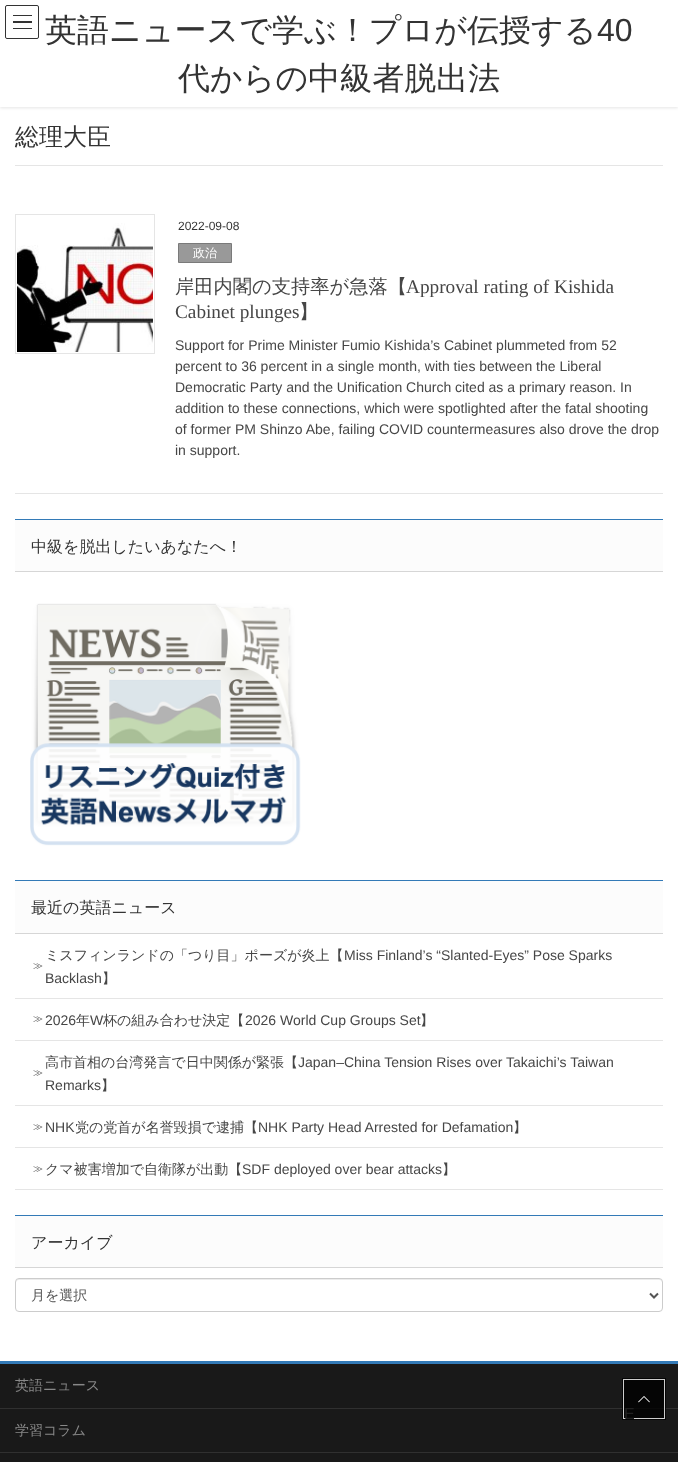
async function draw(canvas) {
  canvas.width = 678
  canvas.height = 1462
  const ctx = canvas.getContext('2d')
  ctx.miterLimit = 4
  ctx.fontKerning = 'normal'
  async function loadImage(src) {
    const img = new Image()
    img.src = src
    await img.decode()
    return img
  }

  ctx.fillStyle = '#fff'
  ctx.fillRect(0, 0, 678, 1462)
  ctx.fillStyle = '#0000001a'
  ctx.filter = 'blur(1.5px)'
  ctx.beginPath()
  ctx.rect(0, 1, 678, 107)
  ctx.fill()
  ctx.filter = 'none'
  ctx.fillStyle = '#fff'
  ctx.fillRect(0, 0, 678, 107)
  ctx.fillStyle = '#333'
  ctx.fillRect(13, 15, 19, 1)
  ctx.fillRect(13, 21, 19, 2)
  ctx.fillRect(13, 28, 19, 1)
  ctx.beginPath()
  ctx.roundRect(5.5, 5.5, 33, 33, 1.5)
  ctx.strokeStyle = '#333'
  ctx.stroke()
  ctx.font = '500 32px WenQuanYi Zen Hei'
  ctx.fillText('英語ニュースで学ぶ！プロが伝授する', 45, 41)
  ctx.font = '32px Liberation Sans'
  ctx.fillText('40', 597, 41)
  ctx.font = '500 32px WenQuanYi Zen Hei'
  ctx.fillText('代からの中級者脱出法', 178, 89)
  ctx.fillStyle = '#e5e5e5'
  ctx.fillRect(15, 165, 648, 1)
  ctx.font = '500 24px WenQuanYi Zen Hei'
  ctx.fillStyle = '#333'
  ctx.fillText('総理大臣', 15, 145)
  ctx.fillStyle = '#e5e5e5'
  ctx.fillRect(15, 493, 648, 1)
  ctx.strokeStyle = '#e5e5e5'
  ctx.strokeRect(15.5, 214.5, 139, 139)
  ctx.drawImage(await loadImage('image0.png'), 17, 223, 136, 129)
  ctx.font = '12px Liberation Sans'
  ctx.fillStyle = '#333'
  ctx.fillText('2022-09-08', 178, 230)
  ctx.fillStyle = '#999'
  ctx.beginPath()
  ctx.rect(178.5, 243.5, 53, 19)
  ctx.fill()
  ctx.strokeStyle = '#7a7a7a'
  ctx.stroke()
  ctx.font = '500 12px WenQuanYi Zen Hei'
  ctx.fillStyle = '#fff'
  ctx.fillText('政治', 193, 257)
  ctx.font = '500 19.25px WenQuanYi Zen Hei'
  ctx.fillStyle = '#464646'
  ctx.fillText('岸田内閣の支持率が急落【', 175, 293)
  ctx.font = '19.25px Liberation Serif'
  ctx.fillText('Approval rating of Kishida', 406, 293)
  ctx.fillText('Cabinet plunges', 175, 318)
  ctx.font = '500 19.25px WenQuanYi Zen Hei'
  ctx.fillText('】', 299, 318)
  ctx.font = '14px Liberation Sans'
  ctx.fillText('Support for Prime Minister Fumio Kishida’s Cabinet plummeted from 52', 175, 350)
  ctx.fillText('percent to 36 percent in a single month, with ties between the Liberal', 175, 371)
  ctx.fillText('Democratic Party and the Unification Church cited as a primary reason. In', 175, 392)
  ctx.fillText('addition to these connections, which were spotlighted after the fatal shooting', 175, 413)
  ctx.fillText('of former PM Shinzo Abe, failing COVID countermeasures also drove the drop', 175, 434)
  ctx.fillText('in support.', 175, 455)
  ctx.fillStyle = '#fcfcfc'
  ctx.fillRect(15, 520, 648, 51)
  ctx.fillStyle = '#337ab7'
  ctx.fillRect(15, 519, 648, 1)
  ctx.fillStyle = '#d6d6d6'
  ctx.fillRect(15, 571, 648, 1)
  ctx.font = '500 16px WenQuanYi Zen Hei'
  ctx.fillStyle = '#333'
  ctx.fillText('中級を脱出したいあなたへ！', 31, 552)
  ctx.drawImage(await loadImage('image1.png'), 30, 603, 271, 243)
  ctx.fillStyle = '#fcfcfc'
  ctx.fillRect(15, 881, 648, 52)
  ctx.fillStyle = '#337ab7'
  ctx.fillRect(15, 880, 648, 1)
  ctx.fillStyle = '#d6d6d6'
  ctx.fillRect(15, 933, 648, 1)
  ctx.fillStyle = '#333'
  ctx.fillText('最近の英語ニュース', 31, 913)
  ctx.fillStyle = '#e5e5e5'
  ctx.fillRect(15, 998, 648, 1)
  ctx.font = '500 14px WenQuanYi Zen Hei'
  ctx.fillStyle = '#464646'
  ctx.fillText('ミスフィンランドの「つり目」ポーズが炎上【', 45, 960)
  ctx.font = '14px Liberation Sans'
  ctx.fillText('Miss Finland’s “Slanted-Eyes” Pose Sparks', 344, 960)
  ctx.font = '500 10px WenQuanYi Zen Hei'
  ctx.fillText('≫', 33, 969)
  ctx.font = '14px Liberation Sans'
  ctx.fillText('Backlash', 45, 983)
  ctx.font = '500 14px WenQuanYi Zen Hei'
  ctx.fillText('】', 102, 983)
  ctx.fillStyle = '#e5e5e5'
  ctx.fillRect(15, 1040, 648, 1)
  ctx.font = '500 10px WenQuanYi Zen Hei'
  ctx.fillStyle = '#464646'
  ctx.fillText('≫', 33, 1022)
  ctx.font = '14px Liberation Sans'
  ctx.fillText('2026', 45, 1025)
  ctx.font = '500 14px WenQuanYi Zen Hei'
  ctx.fillText('年', 76, 1025)
  ctx.font = '14px Liberation Sans'
  ctx.fillText('W', 90, 1025)
  ctx.font = '500 14px WenQuanYi Zen Hei'
  ctx.fillText('杯の組み合わせ決定【', 103, 1025)
  ctx.font = '14px Liberation Sans'
  ctx.fillText('2026 World Cup Groups Set', 245, 1025)
  ctx.font = '500 14px WenQuanYi Zen Hei'
  ctx.fillText('】', 420, 1025)
  ctx.fillStyle = '#e5e5e5'
  ctx.fillRect(15, 1105, 648, 1)
  ctx.fillStyle = '#464646'
  ctx.fillText('高市首相の台湾発言で日中関係が緊張【', 45, 1067)
  ctx.font = '14px Liberation Sans'
  ctx.fillText('Japan–China Tension Rises over Takaichi’s Taiwan', 298, 1067)
  ctx.font = '500 10px WenQuanYi Zen Hei'
  ctx.fillText('≫', 33, 1076)
  ctx.font = '14px Liberation Sans'
  ctx.fillText('Remarks', 45, 1090)
  ctx.font = '500 14px WenQuanYi Zen Hei'
  ctx.fillText('】', 101, 1090)
  ctx.fillStyle = '#e5e5e5'
  ctx.fillRect(15, 1147, 648, 1)
  ctx.font = '500 10px WenQuanYi Zen Hei'
  ctx.fillStyle = '#464646'
  ctx.fillText('≫', 33, 1130)
  ctx.font = '14px Liberation Sans'
  ctx.fillText('NHK', 45, 1132)
  ctx.font = '500 14px WenQuanYi Zen Hei'
  ctx.fillText('党の党首が名誉毀損で逮捕【', 75, 1132)
  ctx.font = '14px Liberation Sans'
  ctx.fillText('NHK Party Head Arrested for Defamation', 258, 1132)
  ctx.font = '500 14px WenQuanYi Zen Hei'
  ctx.fillText('】', 513, 1132)
  ctx.fillStyle = '#e5e5e5'
  ctx.fillRect(15, 1189, 648, 1)
  ctx.font = '500 10px WenQuanYi Zen Hei'
  ctx.fillStyle = '#464646'
  ctx.fillText('≫', 33, 1172)
  ctx.font = '500 14px WenQuanYi Zen Hei'
  ctx.fillText('クマ被害増加で自衛隊が出動【', 45, 1174)
  ctx.font = '14px Liberation Sans'
  ctx.fillText('SDF deployed over bear attacks', 242, 1174)
  ctx.font = '500 14px WenQuanYi Zen Hei'
  ctx.fillText('】', 442, 1174)
  ctx.fillStyle = '#fcfcfc'
  ctx.fillRect(15, 1216, 648, 51)
  ctx.fillStyle = '#337ab7'
  ctx.fillRect(15, 1215, 648, 1)
  ctx.fillStyle = '#d6d6d6'
  ctx.fillRect(15, 1267, 648, 1)
  ctx.font = '500 16px WenQuanYi Zen Hei'
  ctx.fillStyle = '#333'
  ctx.fillText('アーカイブ', 31, 1248)
  ctx.fillStyle = '#ececec'
  ctx.beginPath()
  ctx.moveTo(19, 1280)
  ctx.lineTo(659, 1280)
  ctx.bezierCurveTo(661, 1280, 662, 1281, 662, 1283)
  ctx.lineTo(662, 1282)
  ctx.bezierCurveTo(662, 1280, 661, 1279, 659, 1279)
  ctx.lineTo(19, 1279)
  ctx.bezierCurveTo(17, 1279, 16, 1280, 16, 1282)
  ctx.lineTo(16, 1283)
  ctx.bezierCurveTo(16, 1281, 17, 1280, 19, 1280)
  ctx.closePath()
  ctx.fill()
  ctx.beginPath()
  ctx.roundRect(15.5, 1278.5, 647, 33, 3.5)
  ctx.strokeStyle = '#ccc'
  ctx.stroke()
  ctx.beginPath()
  ctx.moveTo(650, 1293.5)
  ctx.lineTo(654, 1297.5)
  ctx.lineTo(658, 1293.5)
  ctx.strokeStyle = '#555'
  ctx.lineWidth = 2
  ctx.stroke()
  ctx.font = '500 14px WenQuanYi Zen Hei'
  ctx.fillStyle = '#555'
  ctx.fillText('月を選択', 31, 1300)
  ctx.fillStyle = '#191919'
  ctx.fillRect(0, 1364, 678, 98)
  ctx.fillStyle = '#050505'
  ctx.fillRect(624, 1380, 40, 38)
  ctx.fillStyle = '#337ab7'
  ctx.fillRect(0, 1361, 678, 3)
  ctx.fillStyle = '#303030'
  ctx.fillRect(0, 1408, 678, 1)
  ctx.fillStyle = '#0a0a0a'
  ctx.fillRect(624, 1408, 40, 1)
  ctx.fillStyle = '#888'
  ctx.fillText('英語ニュース', 15, 1390)
  ctx.fillStyle = '#303030'
  ctx.fillRect(0, 1452, 678, 1)
  ctx.fillStyle = '#888'
  ctx.fillText('学習コラム', 15, 1435)
  ctx.strokeStyle = '#000000cc'
  ctx.strokeRect(623, 1379, 42, 40)
  ctx.strokeStyle = '#ffffffcc'
  ctx.lineWidth = 1
  ctx.strokeRect(623.5, 1379.5, 41, 39)
  ctx.drawImage(await loadImage('image2.png'), 638, 1396, 12, 7)
  ctx.font = '16px Liberation Sans'
  ctx.fillStyle = '#212121'
  ctx.fillText('E', 624, 1419)
}

draw(document.querySelector('canvas'))
